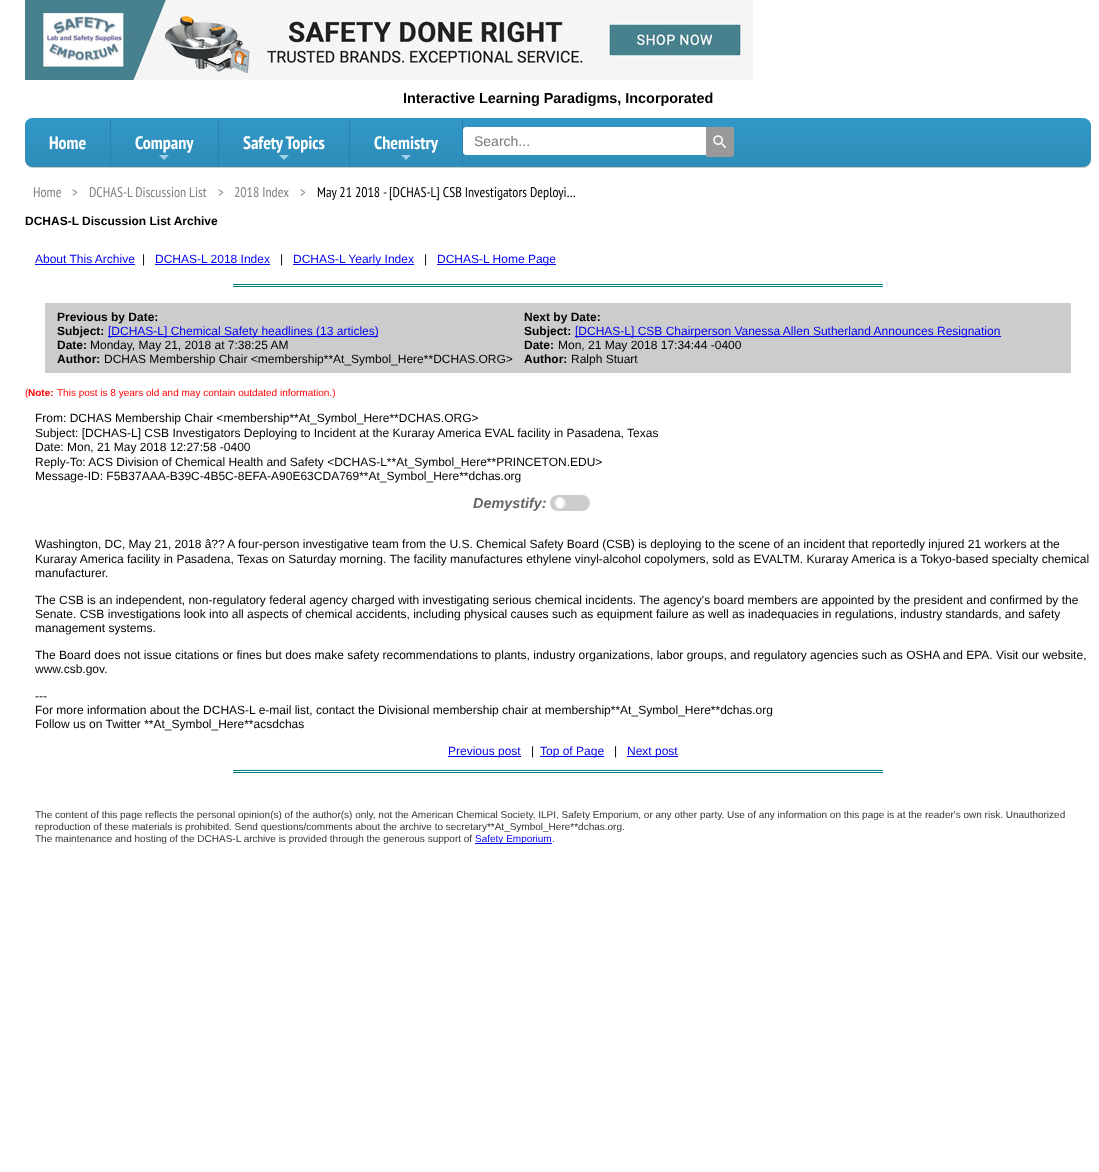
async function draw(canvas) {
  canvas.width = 1099
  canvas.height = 1172
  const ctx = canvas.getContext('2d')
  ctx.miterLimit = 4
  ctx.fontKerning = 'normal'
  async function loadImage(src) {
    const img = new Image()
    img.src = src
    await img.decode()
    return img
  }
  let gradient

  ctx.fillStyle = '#fff'
  ctx.fillRect(0, 0, 1099, 1172)
  ctx.drawImage(await loadImage('image0.png'), 25, 0, 728, 80)
  ctx.font = 'bold 14.4px Liberation Sans'
  ctx.fillStyle = '#000'
  ctx.fillText('Interactive Learning Paradigms, Incorporated', 403, 103)
  ctx.fillStyle = '#00000033'
  ctx.filter = 'blur(0.5px)'
  ctx.beginPath()
  ctx.roundRect(25, 119, 1066, 49, 8)
  ctx.fill()
  ctx.filter = 'none'
  gradient = ctx.createLinearGradient(558, 118, 558, 167)
  gradient.addColorStop(0, '#3298c8')
  gradient.addColorStop(1, '#2e8cb8')
  ctx.fillStyle = gradient
  ctx.beginPath()
  ctx.roundRect(25, 118, 1066, 49, 8)
  ctx.fill()
  gradient = ctx.createLinearGradient(68, 118, 68, 167)
  gradient.addColorStop(0, '#3298c8')
  gradient.addColorStop(1, '#2e8cb8')
  ctx.fillStyle = gradient
  ctx.beginPath()
  ctx.roundRect(25, 118, 85, 49, [8, 0, 0, 8])
  ctx.fill()
  ctx.font = 'bold 18px PT Sans Narrow'
  ctx.fillStyle = '#fff'
  ctx.fillText('Home', 49, 149)
  ctx.fillStyle = '#2b82ac'
  ctx.fillRect(110, 118, 1, 49)
  ctx.fillStyle = '#fff'
  ctx.fillText('Company', 135, 149)
  ctx.fillStyle = '#a1d1e8'
  ctx.beginPath()
  ctx.moveTo(159, 155)
  ctx.lineTo(169, 155)
  ctx.lineTo(164, 160)
  ctx.closePath()
  ctx.fill()
  ctx.fillStyle = '#2b82ac'
  ctx.fillRect(218, 118, 1, 49)
  ctx.fillStyle = '#fff'
  ctx.fillText('Safety Topics', 243, 149)
  ctx.fillStyle = '#a1d1e8'
  ctx.beginPath()
  ctx.moveTo(279, 155)
  ctx.lineTo(289, 155)
  ctx.lineTo(284, 160)
  ctx.closePath()
  ctx.fill()
  ctx.fillStyle = '#2b82ac'
  ctx.fillRect(349, 118, 1, 49)
  ctx.fillStyle = '#fff'
  ctx.fillText('Chemistry', 374, 149)
  ctx.fillStyle = '#a1d1e8'
  ctx.beginPath()
  ctx.moveTo(401, 155)
  ctx.lineTo(411, 155)
  ctx.lineTo(406, 160)
  ctx.closePath()
  ctx.fill()
  ctx.fillStyle = '#2b82ac'
  ctx.fillRect(462, 118, 1, 48)
  ctx.fillStyle = '#fff'
  ctx.beginPath()
  ctx.roundRect(463.5, 127.5, 270, 27, 2.5)
  ctx.fill()
  ctx.strokeStyle = '#fff'
  ctx.stroke()
  ctx.font = '14px Liberation Sans'
  ctx.fillStyle = '#757575'
  ctx.fillText('Search...', 474, 146)
  ctx.fillStyle = '#999'
  ctx.beginPath()
  ctx.roundRect(706, 127, 28, 30, [0, 3, 3, 0])
  ctx.fill()
  ctx.drawImage(await loadImage('image1.png'), 713, 135, 13, 13)
  ctx.font = '14px PT Sans Narrow'
  ctx.fillStyle = '#808080'
  ctx.fillText('Home', 33, 197)
  ctx.fillText('>', 72, 197)
  ctx.fillText('DCHAS-L Discussion List', 89, 197)
  ctx.fillText('>', 218, 197)
  ctx.fillText('2018 Index', 234, 197)
  ctx.fillText('>', 300, 197)
  ctx.fillStyle = '#000'
  ctx.fillText('May 21 2018 - [DCHAS-L] CSB Investigators Deployi…', 317, 197)
  ctx.font = 'bold 12px Liberation Sans'
  ctx.fillText('DCHAS-L Discussion List Archive', 25, 225)
  ctx.font = '12px Liberation Sans'
  ctx.fillStyle = '#00e'
  ctx.fillText('About This Archive', 35, 263)
  ctx.fillRect(35, 264, 100, 1)
  ctx.fillStyle = '#000'
  ctx.fillText('|', 142, 263)
  ctx.fillStyle = '#00e'
  ctx.fillText('DCHAS-L 2018 Index', 155, 263)
  ctx.fillRect(155, 264, 115, 1)
  ctx.fillStyle = '#000'
  ctx.fillText('|', 280, 263)
  ctx.fillStyle = '#00e'
  ctx.fillRect(293, 264, 121, 1)
  ctx.fillText('DCHAS-L Yearly Index', 293, 263)
  ctx.fillStyle = '#000'
  ctx.fillText('|', 424, 263)
  ctx.fillStyle = '#00e'
  ctx.fillRect(437, 264, 119, 1)
  ctx.fillText('DCHAS-L Home Page', 437, 263)
  ctx.fillStyle = '#008080'
  ctx.fillRect(233, 284, 650, 1)
  ctx.fillRect(233, 286, 650, 1)
  ctx.fillStyle = '#ccc'
  ctx.fillRect(45, 303, 1026, 70)
  ctx.font = 'bold 12px Liberation Sans'
  ctx.fillStyle = '#000'
  ctx.fillText('Previous by Date:', 57, 321)
  ctx.fillText('Subject:', 57, 335)
  ctx.fillStyle = '#00e'
  ctx.fillRect(108, 336, 270, 1)
  ctx.font = '12px Liberation Sans'
  ctx.fillText('[DCHAS-L] Chemical Safety headlines (13 articles)', 108, 335)
  ctx.font = 'bold 12px Liberation Sans'
  ctx.fillStyle = '#000'
  ctx.fillText('Date:', 57, 349)
  ctx.font = '12px Liberation Sans'
  ctx.fillText('Monday, May 21, 2018 at 7:38:25 AM', 90, 349)
  ctx.font = 'bold 12px Liberation Sans'
  ctx.fillText('Author:', 57, 363)
  ctx.font = '12px Liberation Sans'
  ctx.fillText('DCHAS Membership Chair <membership**At_Symbol_Here**DCHAS.ORG>', 104, 363)
  ctx.font = 'bold 12px Liberation Sans'
  ctx.fillText('Next by Date:', 524, 321)
  ctx.fillText('Subject:', 524, 335)
  ctx.fillStyle = '#00e'
  ctx.fillRect(575, 336, 426, 1)
  ctx.font = '12px Liberation Sans'
  ctx.fillText('[DCHAS-L] CSB Chairperson Vanessa Allen Sutherland Announces Resignation', 575, 335)
  ctx.font = 'bold 12px Liberation Sans'
  ctx.fillStyle = '#000'
  ctx.fillText('Date:', 524, 349)
  ctx.font = '12px Liberation Sans'
  ctx.fillText('Mon, 21 May 2018 17:34:44 -0400', 558, 349)
  ctx.font = 'bold 12px Liberation Sans'
  ctx.fillText('Author:', 524, 363)
  ctx.font = '12px Liberation Sans'
  ctx.fillText('Ralph Stuart', 571, 363)
  ctx.font = '10px Liberation Sans'
  ctx.fillStyle = '#f00'
  ctx.fillText('(', 25, 396)
  ctx.font = 'bold 10px Liberation Sans'
  ctx.fillText('Note:', 28, 396)
  ctx.font = '10px Liberation Sans'
  ctx.fillText('This post is 8 years old and may contain outdated information.)', 57, 396)
  ctx.font = '12px Liberation Sans'
  ctx.fillStyle = '#000'
  ctx.fillText('From: DCHAS Membership Chair <membership**At_Symbol_Here**DCHAS.ORG>', 35, 422)
  ctx.fillText('Subject: [DCHAS-L] CSB Investigators Deploying to Incident at the Kuraray America EVAL facility in Pasadena, Texas', 35, 437)
  ctx.fillText('Date: Mon, 21 May 2018 12:27:58 -0400', 35, 451)
  ctx.fillText('Reply-To: ACS Division of Chemical Health and Safety <DCHAS-L**At_Symbol_Here**PRINCETON.EDU>', 35, 466)
  ctx.fillText('Message-ID: F5B37AAA-B39C-4B5C-8EFA-A90E63CDA769**At_Symbol_Here**dchas.org', 35, 480)
  ctx.font = 'italic bold 14.4px Liberation Sans'
  ctx.fillStyle = '#666'
  ctx.fillText('Demystify:', 473, 508)
  ctx.fillStyle = '#ccc'
  ctx.beginPath()
  ctx.roundRect(550, 495, 40, 16, 8)
  ctx.fill()
  ctx.fillStyle = '#fff'
  ctx.beginPath()
  ctx.arc(560, 503, 6, 0, 2 * Math.PI)
  ctx.fill()
  ctx.fillStyle = '#c8c8c880'
  ctx.beginPath()
  ctx.moveTo(560, 497)
  ctx.bezierCurveTo(551.5, 497, 552.5, 510, 561, 509)
  ctx.bezierCurveTo(554.5, 508, 554.5, 498, 561, 497)
  ctx.closePath()
  ctx.fill()
  ctx.beginPath()
  ctx.moveTo(560, 497)
  ctx.lineTo(559, 497)
  ctx.bezierCurveTo(565.5, 498, 565.5, 508, 559, 509)
  ctx.bezierCurveTo(567.5, 510, 568.5, 497, 560, 497)
  ctx.closePath()
  ctx.fill()
  ctx.font = '12px Liberation Sans'
  ctx.fillStyle = '#000'
  ctx.fillText('Washington, DC, May 21, 2018 â?? A four-person investigative team from the U.S. Chemical Safety Board (CSB) is deploying to the scene of an incident that reportedly injured 21 workers at the', 35, 548)
  ctx.fillText('Kuraray America facility in Pasadena, Texas on Saturday morning. The facility manufactures ethylene vinyl-alcohol copolymers, sold as EVALTM. Kuraray America is a Tokyo-based specialty chemical', 35, 563)
  ctx.fillText('manufacturer.', 35, 577)
  ctx.fillText('The CSB is an independent, non-regulatory federal agency charged with investigating serious chemical incidents. The agency\'s board members are appointed by the president and confirmed by the', 35, 604)
  ctx.fillText('Senate. CSB investigations look into all aspects of chemical accidents, including physical causes such as equipment failure as well as inadequacies in regulations, industry standards, and safety', 35, 618)
  ctx.fillText('management systems.', 35, 632)
  ctx.fillText('The Board does not issue citations or fines but does make safety recommendations to plants, industry organizations, labor groups, and regulatory agencies such as OSHA and EPA. Visit our website,', 35, 659)
  ctx.fillText('www.csb.gov.', 35, 673)
  ctx.fillText('---', 35, 700)
  ctx.fillText('For more information about the DCHAS-L e-mail list, contact the Divisional membership chair at membership**At_Symbol_Here**dchas.org', 35, 714)
  ctx.fillText('Follow us on Twitter **At_Symbol_Here**acsdchas', 35, 728)
  ctx.fillStyle = '#00e'
  ctx.fillRect(448, 756, 73, 1)
  ctx.fillText('Previous post', 448, 755)
  ctx.fillStyle = '#000'
  ctx.fillText('|', 531, 755)
  ctx.fillStyle = '#00e'
  ctx.fillRect(540, 756, 64, 1)
  ctx.fillText('Top of Page', 540, 755)
  ctx.fillStyle = '#000'
  ctx.fillText('|', 614, 755)
  ctx.fillStyle = '#00e'
  ctx.fillRect(627, 756, 51, 1)
  ctx.fillText('Next post', 627, 755)
  ctx.fillStyle = '#008080'
  ctx.fillRect(233, 770, 650, 1)
  ctx.fillRect(233, 772, 650, 1)
  ctx.font = '10px Liberation Sans'
  ctx.fillStyle = '#333'
  ctx.fillText('The content of this page reflects the personal opinion(s) of the author(s) only, not the American Chemical Society, ILPI, Safety Emporium, or any other party. Use of any information on this page is at the reader\'s own risk. Unauthorized', 35, 818)
  ctx.fillText('reproduction of these materials is prohibited. Send questions/comments about the archive to secretary**At_Symbol_Here**dchas.org.', 35, 830)
  ctx.fillText('The maintenance and hosting of the DCHAS-L archive is provided through the generous support of', 35, 842)
  ctx.fillStyle = '#00e'
  ctx.fillRect(475, 843, 77, 1)
  ctx.fillText('Safety Emporium', 475, 842)
  ctx.fillStyle = '#333'
  ctx.fillText('.', 552, 842)
}

draw(document.querySelector('canvas'))
